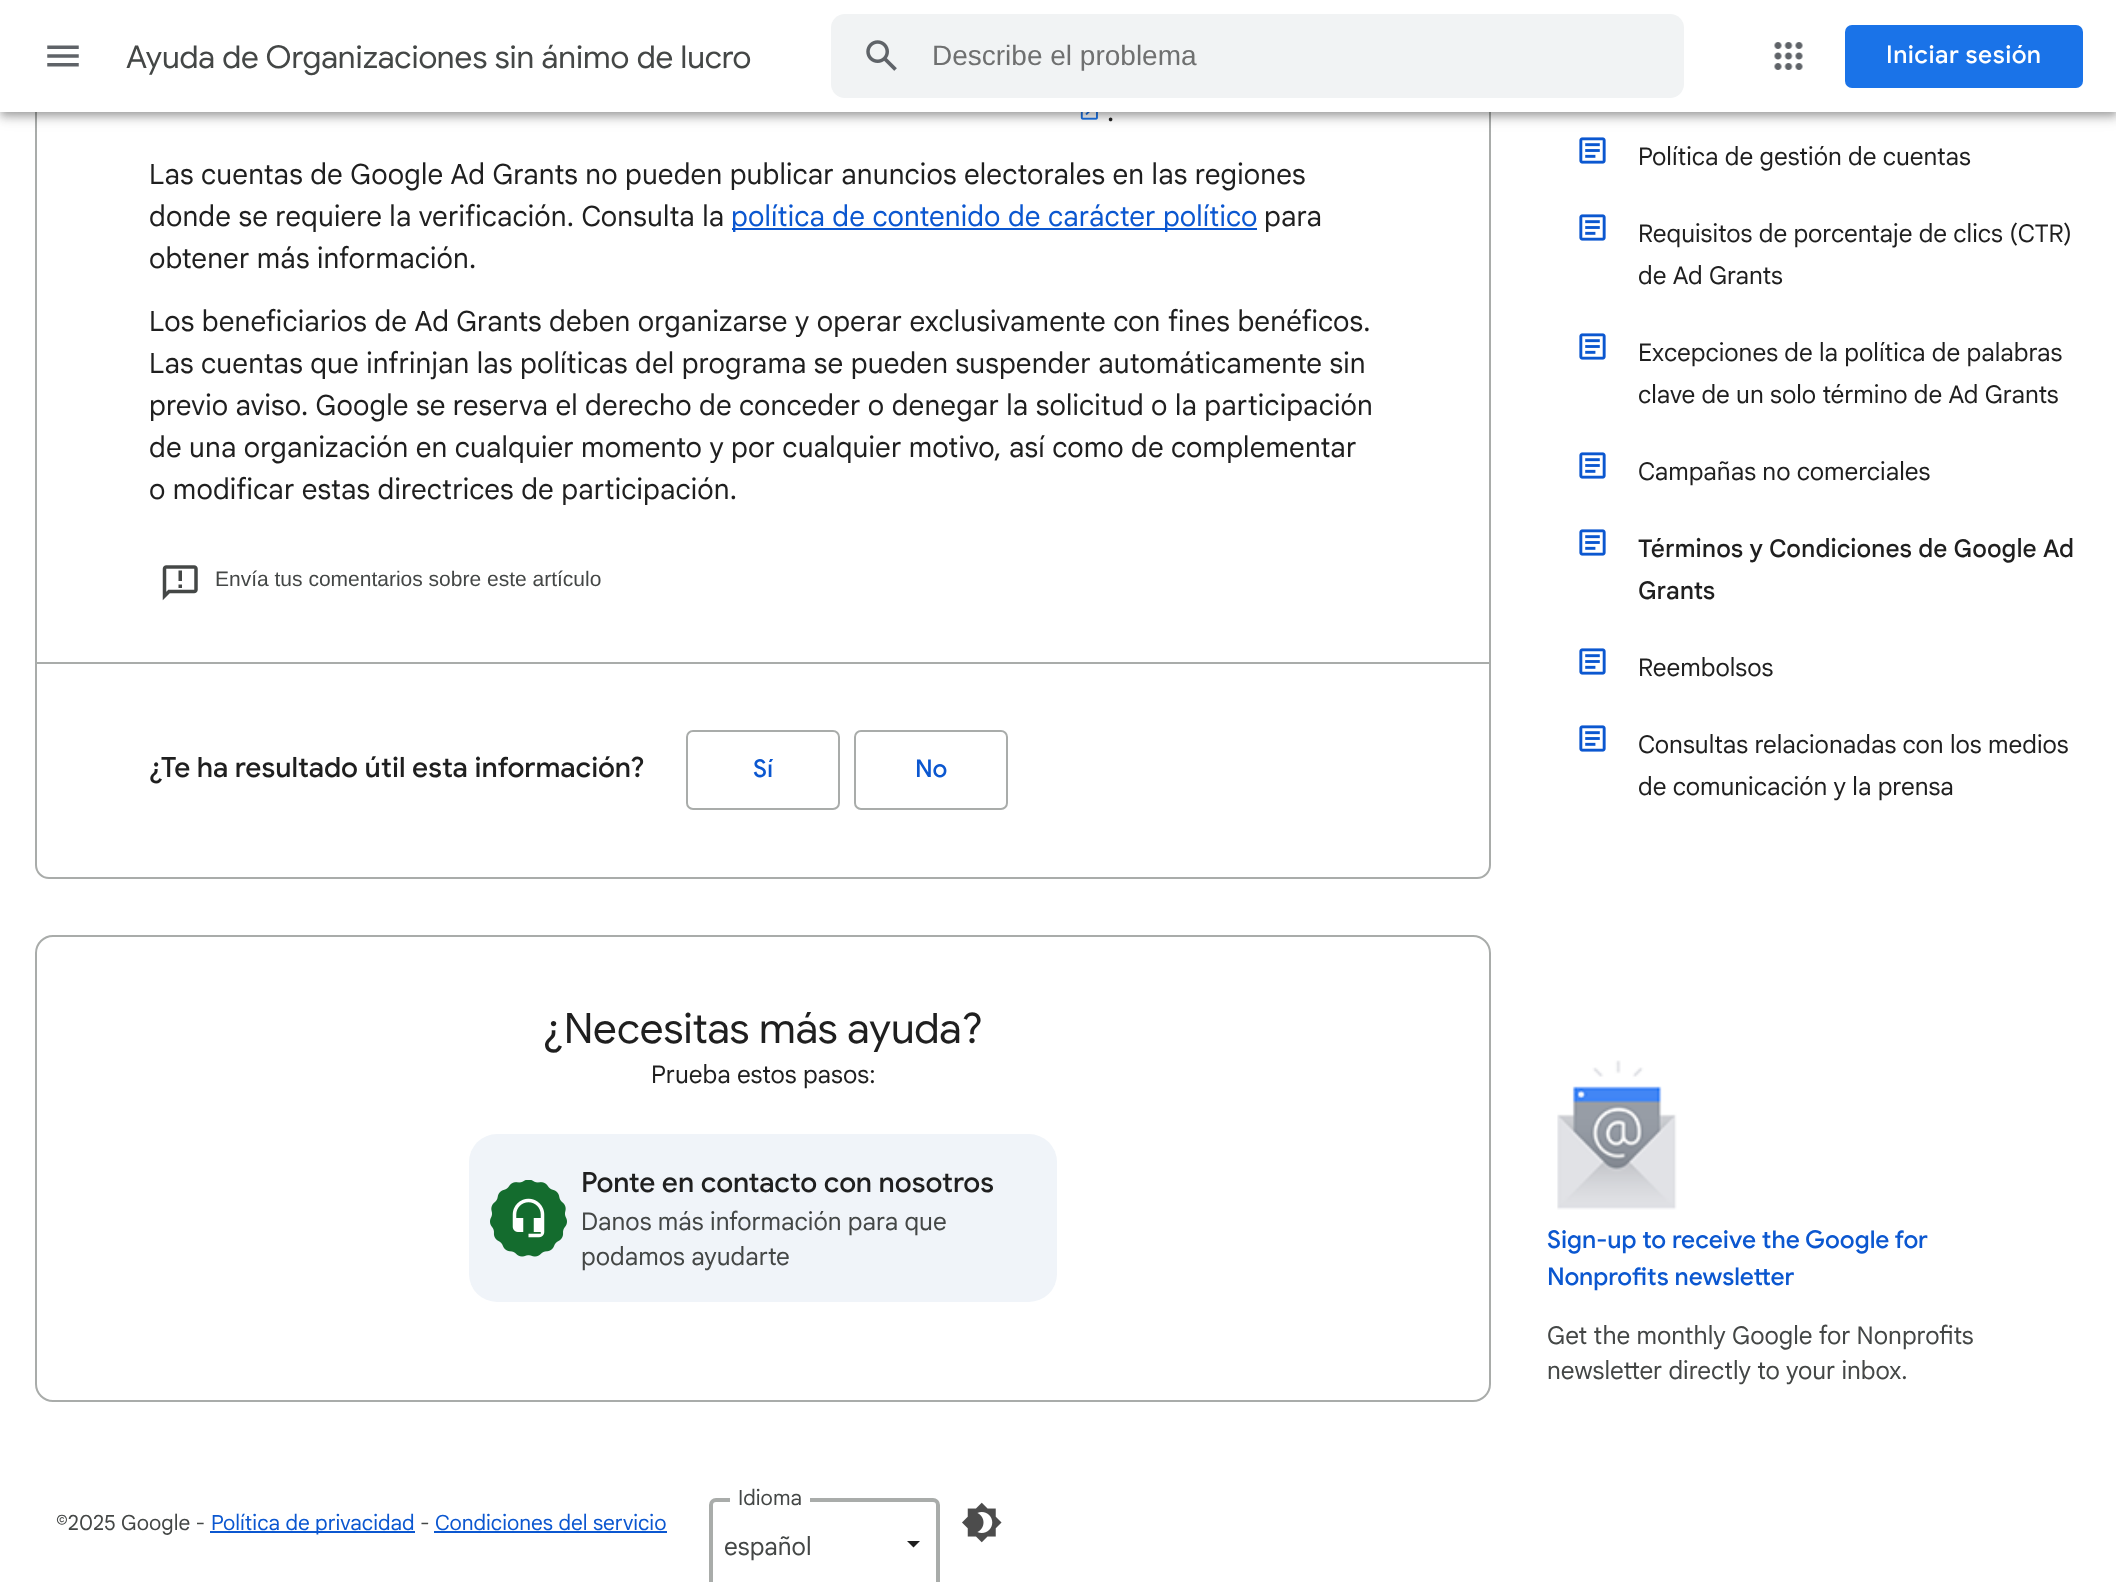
async function draw(canvas) {
  canvas.width = 2116
  canvas.height = 1582
  const ctx = canvas.getContext('2d')
  ctx.miterLimit = 4
  ctx.fontKerning = 'normal'
  async function loadImage(src) {
    const img = new Image()
    img.src = src
    await img.decode()
    return img
  }

  ctx.fillStyle = '#fff'
  ctx.fillRect(0, 0, 2116, 1582)
  ctx.beginPath()
  ctx.roundRect(36, -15, 1454, 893, 13)
  ctx.strokeStyle = '#a9acaa'
  ctx.lineWidth = 2
  ctx.stroke()
  ctx.drawImage(await loadImage('image3.png'), 1080, 112, 18, 8)
  ctx.fillStyle = '#00000033'
  ctx.filter = 'blur(3.5px)'
  ctx.beginPath()
  ctx.rect(2, 5, 2114, 109)
  ctx.fill()
  ctx.filter = 'none'
  ctx.drawImage(await loadImage('image7.png'), 1579, 137, 27, 27)
  ctx.fillStyle = '#0000001f'
  ctx.filter = 'blur(9px)'
  ctx.beginPath()
  ctx.rect(0, 2, 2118, 112)
  ctx.fill()
  ctx.filter = 'none'
  ctx.fillStyle = '#00000024'
  ctx.filter = 'blur(4.5px)'
  ctx.beginPath()
  ctx.rect(0, 7, 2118, 112)
  ctx.fill()
  ctx.filter = 'none'
  ctx.fillStyle = '#fff'
  ctx.fillRect(0, 0, 2116, 112)
  ctx.drawImage(await loadImage('image0.png'), 47, 45, 32, 22)
  ctx.font = '31.5px Google Sans'
  ctx.fillStyle = '#444746'
  ctx.fillText('Ayuda de Organizaciones sin ánimo de lucro', 126, 68)
  ctx.fillStyle = '#f1f3f4'
  ctx.beginPath()
  ctx.roundRect(831, 14, 853, 84, 14)
  ctx.fill()
  ctx.drawImage(await loadImage('image1.png'), 866, 40, 31, 31)
  ctx.font = '28px Liberation Sans'
  ctx.fillStyle = '#6f7070'
  ctx.fillText('Describe el problema', 932, 65)
  ctx.drawImage(await loadImage('image2.png'), 1774, 42, 29, 28)
  ctx.fillStyle = '#1a73e8'
  ctx.beginPath()
  ctx.roundRect(1845, 25, 238, 63, 7)
  ctx.fill()
  ctx.letterSpacing = '0.5px'
  ctx.font = '500 24.5px Google Sans'
  ctx.fillStyle = '#fff'
  ctx.fillText('Iniciar sesión', 1886, 63)
  ctx.letterSpacing = '0.15px'
  ctx.font = '28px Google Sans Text'
  ctx.fillStyle = '#1f1f1f'
  ctx.fillText('.', 1107, 121)
  ctx.fillText('Las cuentas de Google Ad Grants no pueden publicar anuncios electorales en las regiones', 149, 184)
  ctx.fillText('donde se requiere la verificación. Consulta la', 149, 226)
  ctx.fillStyle = '#0b57d0'
  ctx.fillRect(732, 228, 525, 2)
  ctx.fillText('política de contenido de carácter político', 731, 226)
  ctx.fillStyle = '#1f1f1f'
  ctx.fillText('para', 1264, 226)
  ctx.fillText('obtener más información.', 149, 268)
  ctx.fillText('Los beneficiarios de Ad Grants deben organizarse y operar exclusivamente con fines benéficos.', 149, 331)
  ctx.fillText('Las cuentas que infrinjan las políticas del programa se pueden suspender automáticamente sin', 149, 373)
  ctx.fillText('previo aviso. Google se reserva el derecho de conceder o denegar la solicitud o la participación', 149, 415)
  ctx.fillText('de una organización en cualquier momento y por cualquier motivo, así como de complementar', 149, 457)
  ctx.fillText('o modificar estas directrices de participación.', 149, 499)
  ctx.drawImage(await loadImage('image4.png'), 162, 565, 36, 36)
  ctx.letterSpacing = '0px'
  ctx.font = '21px Liberation Sans'
  ctx.fillStyle = '#444746'
  ctx.fillText('Envía tus comentarios sobre este artículo', 215, 586)
  ctx.fillStyle = '#a9acaa'
  ctx.fillRect(37, 662, 1452, 2)
  ctx.font = '500 28px Google Sans'
  ctx.fillStyle = '#1f1f1f'
  ctx.fillText('¿Te ha resultado útil esta información?', 149, 777)
  ctx.beginPath()
  ctx.roundRect(687, 731, 152, 78, 6)
  ctx.stroke()
  ctx.font = '500 24.5px Google Sans'
  ctx.fillStyle = '#0b57d0'
  ctx.fillText('Sí', 753, 777)
  ctx.beginPath()
  ctx.roundRect(855, 731, 152, 78, 6)
  ctx.stroke()
  ctx.fillText('No', 915, 777)
  ctx.beginPath()
  ctx.roundRect(36, 936, 1454, 465, 17)
  ctx.stroke()
  ctx.font = '42px Google Sans'
  ctx.fillStyle = '#1f1f1f'
  ctx.fillText('¿Necesitas más ayuda?', 543, 1043)
  ctx.font = '24.5px Google Sans Text'
  ctx.fillText('Prueba estos pasos:', 651, 1083)
  ctx.fillStyle = '#f0f4f9'
  ctx.beginPath()
  ctx.roundRect(469, 1134, 588, 168, 28)
  ctx.fill()
  ctx.drawImage(await loadImage('image5.png'), 490, 1180, 77, 77)
  ctx.drawImage(await loadImage('image6.png'), 512, 1198, 33, 40)
  ctx.font = '500 28px Google Sans'
  ctx.fillStyle = '#1f1f1f'
  ctx.fillText('Ponte en contacto con nosotros', 581, 1192)
  ctx.font = '24.5px Google Sans Text'
  ctx.fillStyle = '#444746'
  ctx.fillText('Danos más información para que', 581, 1230)
  ctx.fillText('podamos ayudarte', 581, 1265)
  ctx.fillStyle = '#1f1f1f'
  ctx.fillText('Política de gestión de cuentas', 1638, 165)
  ctx.drawImage(await loadImage('image7.png'), 1579, 214, 27, 27)
  ctx.fillText('Requisitos de porcentaje de clics (CTR)', 1638, 242)
  ctx.fillText('de Ad Grants', 1638, 284)
  ctx.drawImage(await loadImage('image7.png'), 1579, 333, 27, 27)
  ctx.fillText('Excepciones de la política de palabras', 1638, 361)
  ctx.fillText('clave de un solo término de Ad Grants', 1638, 403)
  ctx.drawImage(await loadImage('image7.png'), 1579, 452, 27, 27)
  ctx.fillText('Campañas no comerciales', 1638, 480)
  ctx.drawImage(await loadImage('image7.png'), 1579, 529, 27, 27)
  ctx.font = '500 24.5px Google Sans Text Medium'
  ctx.fillText('Términos y Condiciones de Google Ad', 1638, 557)
  ctx.fillText('Grants', 1638, 599)
  ctx.drawImage(await loadImage('image7.png'), 1579, 648, 27, 27)
  ctx.font = '24.5px Google Sans Text'
  ctx.fillText('Reembolsos', 1638, 676)
  ctx.drawImage(await loadImage('image7.png'), 1579, 725, 27, 27)
  ctx.fillText('Consultas relacionadas con los medios', 1638, 753)
  ctx.fillText('de comunicación y la prensa', 1638, 795)
  ctx.drawImage(await loadImage('image8.png'), 1557, 1060, 120, 150)
  ctx.font = '500 24.5px Google Sans'
  ctx.fillStyle = '#0b57d0'
  ctx.fillText('Sign-up to receive the Google for', 1547, 1248)
  ctx.fillText('Nonprofits newsletter', 1547, 1285)
  ctx.font = '24.5px Google Sans Text'
  ctx.fillStyle = '#444746'
  ctx.fillText('Get the monthly Google for Nonprofits', 1547, 1344)
  ctx.fillText('newsletter directly to your inbox.', 1547, 1379)
  ctx.font = '21px Google Sans Text'
  ctx.fillText('©2025 Google -', 56, 1530)
  ctx.fillStyle = '#0b57d0'
  ctx.fillRect(210, 1531, 205, 2)
  ctx.fillText('Política de privacidad', 211, 1530)
  ctx.fillStyle = '#444746'
  ctx.fillText('-', 420, 1530)
  ctx.fillStyle = '#0b57d0'
  ctx.fillText('Condiciones del servicio', 435, 1530)
  ctx.fillRect(434, 1531, 233, 2)
  ctx.beginPath()
  ctx.roundRect(711, 1500, 227, 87, 5)
  ctx.lineWidth = 4
  ctx.stroke()
  ctx.fillStyle = '#fff'
  ctx.fillRect(730, 1498, 80, 4)
  ctx.fillStyle = '#444746'
  ctx.fillText('Idioma', 738, 1505)
  ctx.font = '24.5px Google Sans Text'
  ctx.fillText('español', 724, 1555)
  ctx.fillStyle = '#1f1f1f'
  ctx.beginPath()
  ctx.moveTo(907, 1541)
  ctx.lineTo(913.5, 1547.5)
  ctx.lineTo(920, 1541)
  ctx.closePath()
  ctx.fill()
  ctx.drawImage(await loadImage('image9.png'), 962, 1502, 40, 41)
}

draw(document.querySelector('canvas'))
